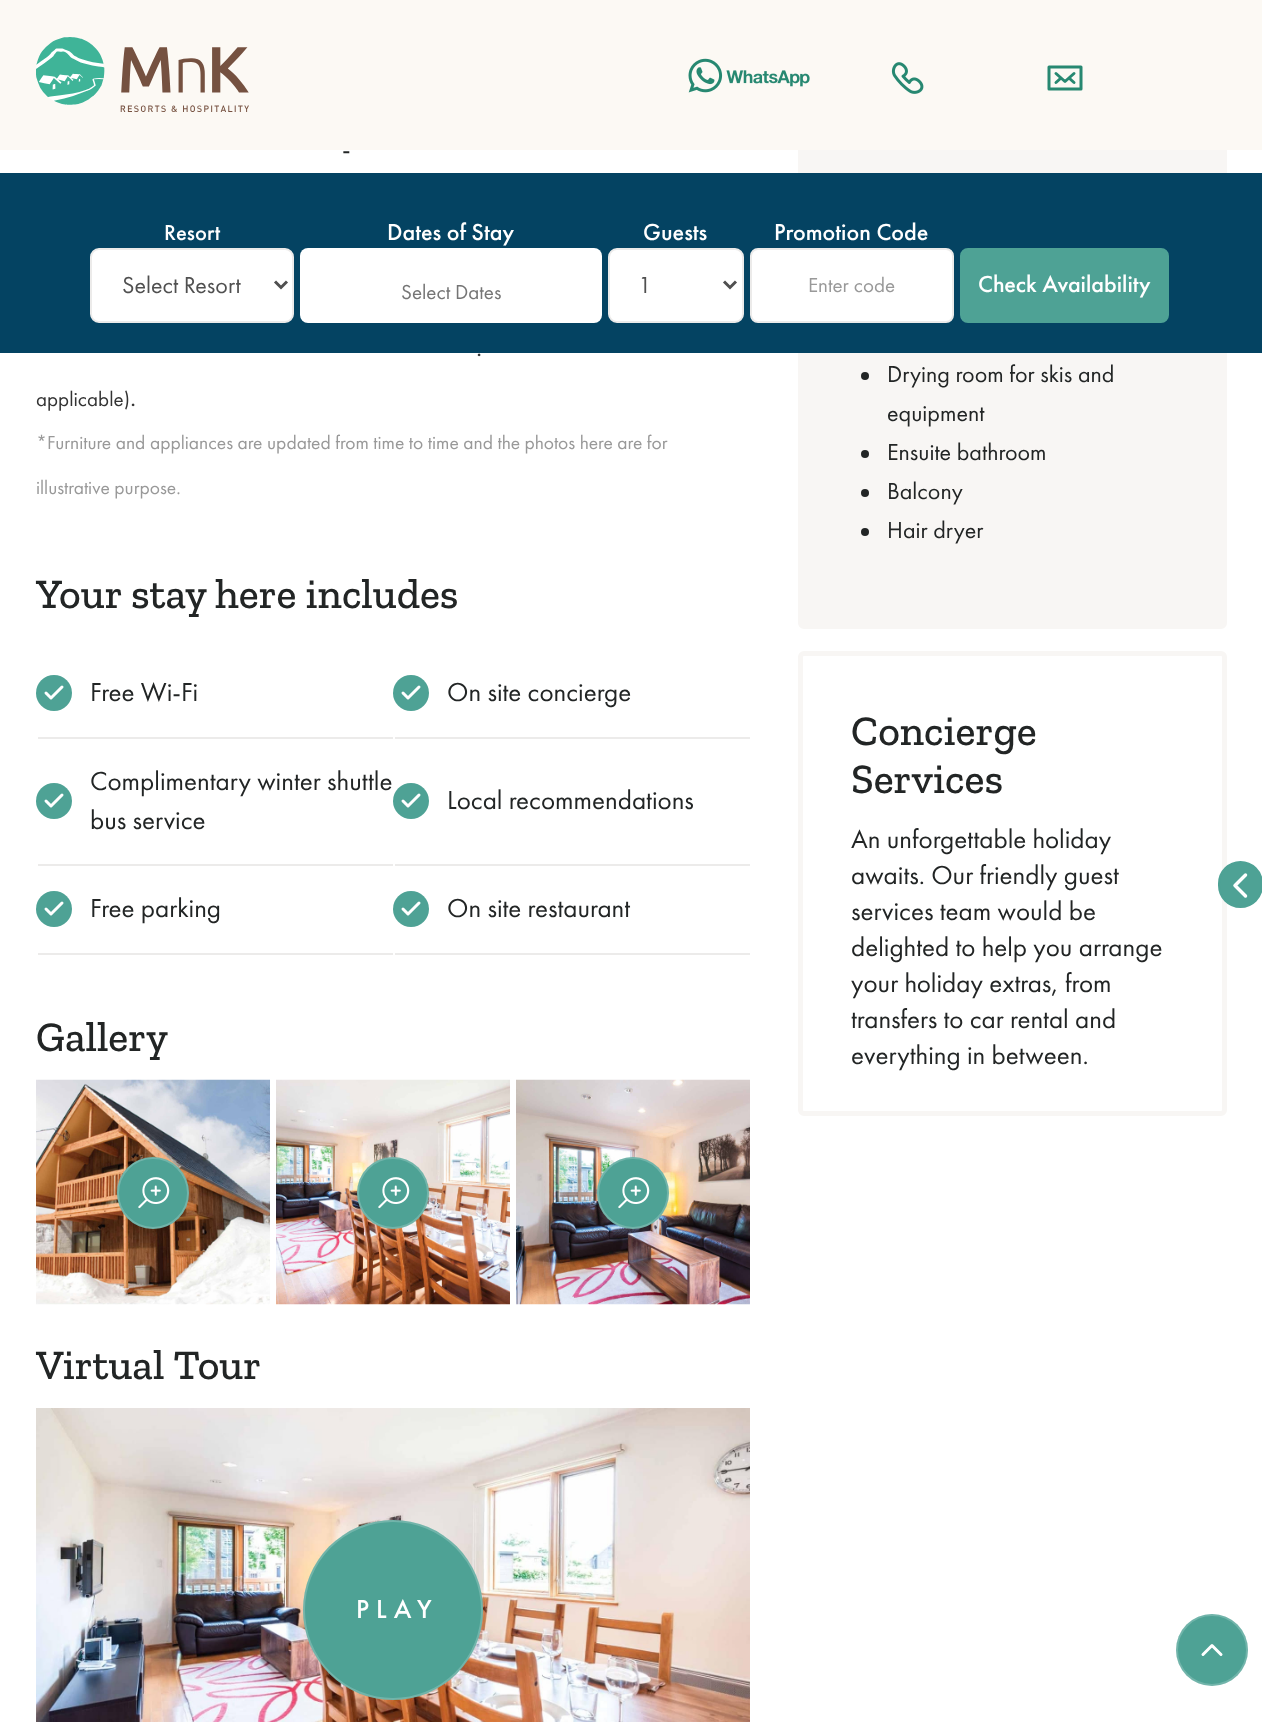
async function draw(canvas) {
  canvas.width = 1262
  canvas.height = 1722
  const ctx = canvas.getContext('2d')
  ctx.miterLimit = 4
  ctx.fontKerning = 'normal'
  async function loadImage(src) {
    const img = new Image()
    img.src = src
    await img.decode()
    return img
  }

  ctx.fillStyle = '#fff'
  ctx.fillRect(0, 0, 1262, 1722)
  ctx.fillStyle = '#f8f6f4'
  ctx.beginPath()
  ctx.roundRect(800.5, -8.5, 424, 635, 3.5)
  ctx.fill()
  ctx.strokeStyle = '#f8f6f4'
  ctx.lineWidth = 5
  ctx.stroke()
  ctx.fillStyle = '#fcf9f4'
  ctx.fillRect(0, 0, 1262, 150)
  ctx.drawImage(await loadImage('image0.png'), 36, 37, 213, 75)
  ctx.drawImage(await loadImage('image1.png'), 688, 58, 122, 35)
  ctx.drawImage(await loadImage('image2.png'), 891, 62, 33, 32)
  ctx.beginPath()
  ctx.moveTo(1081, 67)
  ctx.lineTo(1049, 67)
  ctx.lineTo(1049, 89)
  ctx.lineTo(1081, 89)
  ctx.closePath()
  ctx.moveTo(1056, 73.5)
  ctx.lineTo(1065, 81.5)
  ctx.lineTo(1074, 73.5)
  ctx.moveTo(1061, 78)
  ctx.lineTo(1056, 82.5)
  ctx.moveTo(1074, 82.5)
  ctx.lineTo(1069, 78)
  ctx.strokeStyle = '#278871'
  ctx.lineWidth = 3
  ctx.lineCap = 'round'
  ctx.lineJoin = 'round'
  ctx.stroke()
  ctx.font = '27px Futura PT'
  ctx.fillStyle = '#222525'
  ctx.fillText('-', 342, 158)
  ctx.fillStyle = '#333'
  ctx.fillText('.', 476, 356)
  ctx.font = '21px Futura PT'
  ctx.fillText('applicable)', 36, 406)
  ctx.font = '27px Futura PT'
  ctx.fillText('.', 130, 406)
  ctx.font = '19.5px Futura PT'
  ctx.fillStyle = '#999'
  ctx.fillText('*Furniture and appliances are updated from time to time and the photos here are for', 36, 449)
  ctx.fillText('illustrative purpose.', 36, 494)
  ctx.font = '500 42px Zilla Slab'
  ctx.fillStyle = '#222525'
  ctx.fillText('Your stay here includes', 36, 608)
  ctx.fillStyle = '#ecebea'
  ctx.fillRect(38, 737, 355, 2)
  ctx.fillStyle = '#4ea295'
  ctx.beginPath()
  ctx.arc(54, 693, 18, 0, 2 * Math.PI)
  ctx.fill()
  ctx.beginPath()
  ctx.moveTo(62, 687)
  ctx.lineTo(51, 698)
  ctx.lineTo(46, 693)
  ctx.strokeStyle = '#fff'
  ctx.stroke()
  ctx.font = '27px Futura PT'
  ctx.fillStyle = '#222525'
  ctx.fillText('Free Wi-Fi', 90, 701)
  ctx.fillStyle = '#ecebea'
  ctx.fillRect(395, 737, 355, 2)
  ctx.fillStyle = '#4ea295'
  ctx.beginPath()
  ctx.arc(411, 693, 18, 0, 2 * Math.PI)
  ctx.fill()
  ctx.beginPath()
  ctx.moveTo(419, 687)
  ctx.lineTo(408, 698)
  ctx.lineTo(403, 693)
  ctx.stroke()
  ctx.fillStyle = '#222525'
  ctx.fillText('On site concierge', 447, 701)
  ctx.fillStyle = '#ecebea'
  ctx.fillRect(38, 864, 355, 2)
  ctx.fillStyle = '#4ea295'
  ctx.beginPath()
  ctx.arc(54, 801, 18, 0, 2 * Math.PI)
  ctx.fill()
  ctx.beginPath()
  ctx.moveTo(62, 795)
  ctx.lineTo(51, 806)
  ctx.lineTo(46, 801)
  ctx.stroke()
  ctx.fillStyle = '#222525'
  ctx.fillText('Complimentary winter shuttle', 90, 790)
  ctx.fillText('bus service', 90, 829)
  ctx.fillStyle = '#ecebea'
  ctx.fillRect(395, 864, 355, 2)
  ctx.fillStyle = '#4ea295'
  ctx.beginPath()
  ctx.arc(411, 801, 18, 0, 2 * Math.PI)
  ctx.fill()
  ctx.beginPath()
  ctx.moveTo(419, 795)
  ctx.lineTo(408, 806)
  ctx.lineTo(403, 801)
  ctx.stroke()
  ctx.fillStyle = '#222525'
  ctx.fillText('Local recommendations', 447, 809)
  ctx.fillStyle = '#ecebea'
  ctx.fillRect(38, 953, 355, 2)
  ctx.fillStyle = '#4ea295'
  ctx.beginPath()
  ctx.arc(54, 909, 18, 0, 2 * Math.PI)
  ctx.fill()
  ctx.beginPath()
  ctx.moveTo(62, 903)
  ctx.lineTo(51, 914)
  ctx.lineTo(46, 909)
  ctx.stroke()
  ctx.fillStyle = '#222525'
  ctx.fillText('Free parking', 90, 917)
  ctx.fillStyle = '#ecebea'
  ctx.fillRect(395, 953, 355, 2)
  ctx.fillStyle = '#4ea295'
  ctx.beginPath()
  ctx.arc(411, 909, 18, 0, 2 * Math.PI)
  ctx.fill()
  ctx.beginPath()
  ctx.moveTo(419, 903)
  ctx.lineTo(408, 914)
  ctx.lineTo(403, 909)
  ctx.stroke()
  ctx.fillStyle = '#222525'
  ctx.fillText('On site restaurant', 447, 917)
  ctx.font = '500 42px Zilla Slab'
  ctx.fillText('Gallery', 36, 1051)
  ctx.drawImage(await loadImage('image3.png'), 36, 1079, 234, 226)
  ctx.fillStyle = '#4ea295'
  ctx.beginPath()
  ctx.arc(153, 1193, 36, 0, 2 * Math.PI)
  ctx.fill()
  ctx.drawImage(await loadImage('image4.png'), 138, 1177, 32, 32)
  ctx.beginPath()
  ctx.arc(153, 1193, 35, 0, 2 * Math.PI)
  ctx.strokeStyle = '#ffffff33'
  ctx.lineWidth = 2
  ctx.stroke()
  ctx.drawImage(await loadImage('image5.png'), 276, 1079, 234, 226)
  ctx.beginPath()
  ctx.arc(393, 1193, 36, 0, 2 * Math.PI)
  ctx.fill()
  ctx.drawImage(await loadImage('image4.png'), 378, 1177, 32, 32)
  ctx.beginPath()
  ctx.arc(393, 1193, 35, 0, 2 * Math.PI)
  ctx.stroke()
  ctx.drawImage(await loadImage('image6.png'), 516, 1079, 234, 226)
  ctx.beginPath()
  ctx.arc(633, 1193, 36, 0, 2 * Math.PI)
  ctx.fill()
  ctx.drawImage(await loadImage('image4.png'), 618, 1177, 32, 32)
  ctx.beginPath()
  ctx.arc(633, 1193, 35, 0, 2 * Math.PI)
  ctx.stroke()
  ctx.fillStyle = '#222525'
  ctx.fillText('Virtual Tour', 36, 1379)
  ctx.drawImage(await loadImage('image7.png'), 36, 1408, 714, 314)
  ctx.fillStyle = '#4ea295'
  ctx.beginPath()
  ctx.arc(393, 1610, 90, 0, 2 * Math.PI)
  ctx.fill()
  ctx.beginPath()
  ctx.arc(393, 1610, 89, 0, 2 * Math.PI)
  ctx.stroke()
  ctx.letterSpacing = '7px'
  ctx.font = '500 27px Futura PT'
  ctx.fillStyle = '#fff'
  ctx.fillText('PLAY', 356, 1618)
  ctx.fillStyle = '#222525'
  ctx.beginPath()
  ctx.arc(865, 376, 4, 0, 2 * Math.PI)
  ctx.fill()
  ctx.letterSpacing = '0px'
  ctx.font = '24px Futura PT'
  ctx.fillText('Drying room for skis and', 887, 382)
  ctx.fillText('equipment', 887, 421)
  ctx.beginPath()
  ctx.arc(865, 454, 4, 0, 2 * Math.PI)
  ctx.fill()
  ctx.fillText('Ensuite bathroom', 887, 460)
  ctx.beginPath()
  ctx.arc(865, 493, 4, 0, 2 * Math.PI)
  ctx.fill()
  ctx.fillText('Balcony', 887, 499)
  ctx.beginPath()
  ctx.arc(865, 532, 4, 0, 2 * Math.PI)
  ctx.fill()
  ctx.fillText('Hair dryer', 887, 538)
  ctx.beginPath()
  ctx.roundRect(800.5, 653.5, 424, 460, 3.5)
  ctx.strokeStyle = '#f8f6f4'
  ctx.lineWidth = 5
  ctx.lineJoin = 'miter'
  ctx.stroke()
  ctx.font = '500 42px Zilla Slab'
  ctx.fillText('Concierge', 851, 745)
  ctx.fillText('Services', 851, 793)
  ctx.font = '27px Futura PT'
  ctx.fillText('An unforgettable holiday', 851, 848)
  ctx.fillText('awaits. Our friendly guest', 851, 884)
  ctx.fillText('services team would be', 851, 920)
  ctx.fillText('delighted to help you arrange', 851, 956)
  ctx.fillText('your holiday extras, from', 851, 992)
  ctx.fillText('transfers to car rental and', 851, 1028)
  ctx.fillText('everything in between.', 851, 1064)
  ctx.fillStyle = '#044362'
  ctx.fillRect(0, 173, 1262, 180)
  ctx.font = '500 22.5px Futura PT'
  ctx.fillStyle = '#fff'
  ctx.fillText('Resort', 164, 240)
  ctx.beginPath()
  ctx.roundRect(91, 249, 202, 73, 8)
  ctx.fill()
  ctx.strokeStyle = '#ecebea'
  ctx.lineWidth = 2
  ctx.stroke()
  ctx.beginPath()
  ctx.moveTo(275, 281.5)
  ctx.lineTo(281, 287.5)
  ctx.lineTo(287, 281.5)
  ctx.strokeStyle = '#505050'
  ctx.lineWidth = 3
  ctx.lineCap = 'butt'
  ctx.stroke()
  ctx.font = '24px Futura PT'
  ctx.fillStyle = '#505050'
  ctx.fillText('Select Resort', 122, 293)
  ctx.font = '500 24px Futura PT'
  ctx.fillStyle = '#fff'
  ctx.fillText('Dates of Stay', 387, 240)
  ctx.beginPath()
  ctx.roundRect(300, 248, 302, 75, 8)
  ctx.fill()
  ctx.font = '21px Futura PT'
  ctx.fillStyle = '#757575'
  ctx.fillText('Select Dates', 401, 299)
  ctx.font = '500 24px Futura PT'
  ctx.fillStyle = '#fff'
  ctx.fillText('Guests', 643, 240)
  ctx.beginPath()
  ctx.roundRect(609, 249, 134, 73, 8)
  ctx.fill()
  ctx.strokeStyle = '#ecebea'
  ctx.lineWidth = 2
  ctx.stroke()
  ctx.beginPath()
  ctx.moveTo(724, 281.5)
  ctx.lineTo(730, 287.5)
  ctx.lineTo(736, 281.5)
  ctx.strokeStyle = '#505050'
  ctx.lineWidth = 3
  ctx.stroke()
  ctx.font = '24px Futura PT'
  ctx.fillStyle = '#505050'
  ctx.fillText('1', 638, 293)
  ctx.font = '500 24px Futura PT'
  ctx.fillStyle = '#fff'
  ctx.fillText('Promotion Code', 774, 240)
  ctx.beginPath()
  ctx.roundRect(751, 249, 202, 73, 7)
  ctx.fill()
  ctx.strokeStyle = '#ecebea'
  ctx.lineWidth = 2
  ctx.stroke()
  ctx.font = '21px Futura PT'
  ctx.fillStyle = '#999'
  ctx.fillText('Enter code', 808, 292)
  ctx.fillStyle = '#4ea295'
  ctx.beginPath()
  ctx.roundRect(961.5, 249.5, 206, 72, 6.5)
  ctx.fill()
  ctx.strokeStyle = '#4ea295'
  ctx.lineWidth = 3
  ctx.stroke()
  ctx.font = '500 24px Futura PT'
  ctx.fillStyle = '#fff'
  ctx.fillText('Check Availability', 978, 292)
  ctx.fillStyle = '#4ea295'
  ctx.beginPath()
  ctx.roundRect(1219, 862, 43, 45, 21.5)
  ctx.fill()
  ctx.lineWidth = 2
  ctx.stroke()
  ctx.beginPath()
  ctx.moveTo(1245.5, 875)
  ctx.lineTo(1235, 885.5)
  ctx.lineTo(1245.5, 896)
  ctx.strokeStyle = '#fff'
  ctx.lineWidth = 3.5
  ctx.lineCap = 'round'
  ctx.lineJoin = 'round'
  ctx.stroke()
  ctx.beginPath()
  ctx.arc(1212, 1650, 36, 0, 2 * Math.PI)
  ctx.fill()
  ctx.beginPath()
  ctx.arc(1212, 1650, 35, 0, 2 * Math.PI)
  ctx.strokeStyle = '#ffffff33'
  ctx.lineWidth = 2
  ctx.stroke()
  ctx.beginPath()
  ctx.moveTo(1221, 1654.5)
  ctx.lineTo(1212, 1645.5)
  ctx.lineTo(1203, 1654.5)
  ctx.strokeStyle = '#fff'
  ctx.lineWidth = 3
  ctx.stroke()
}

draw(document.querySelector('canvas'))
